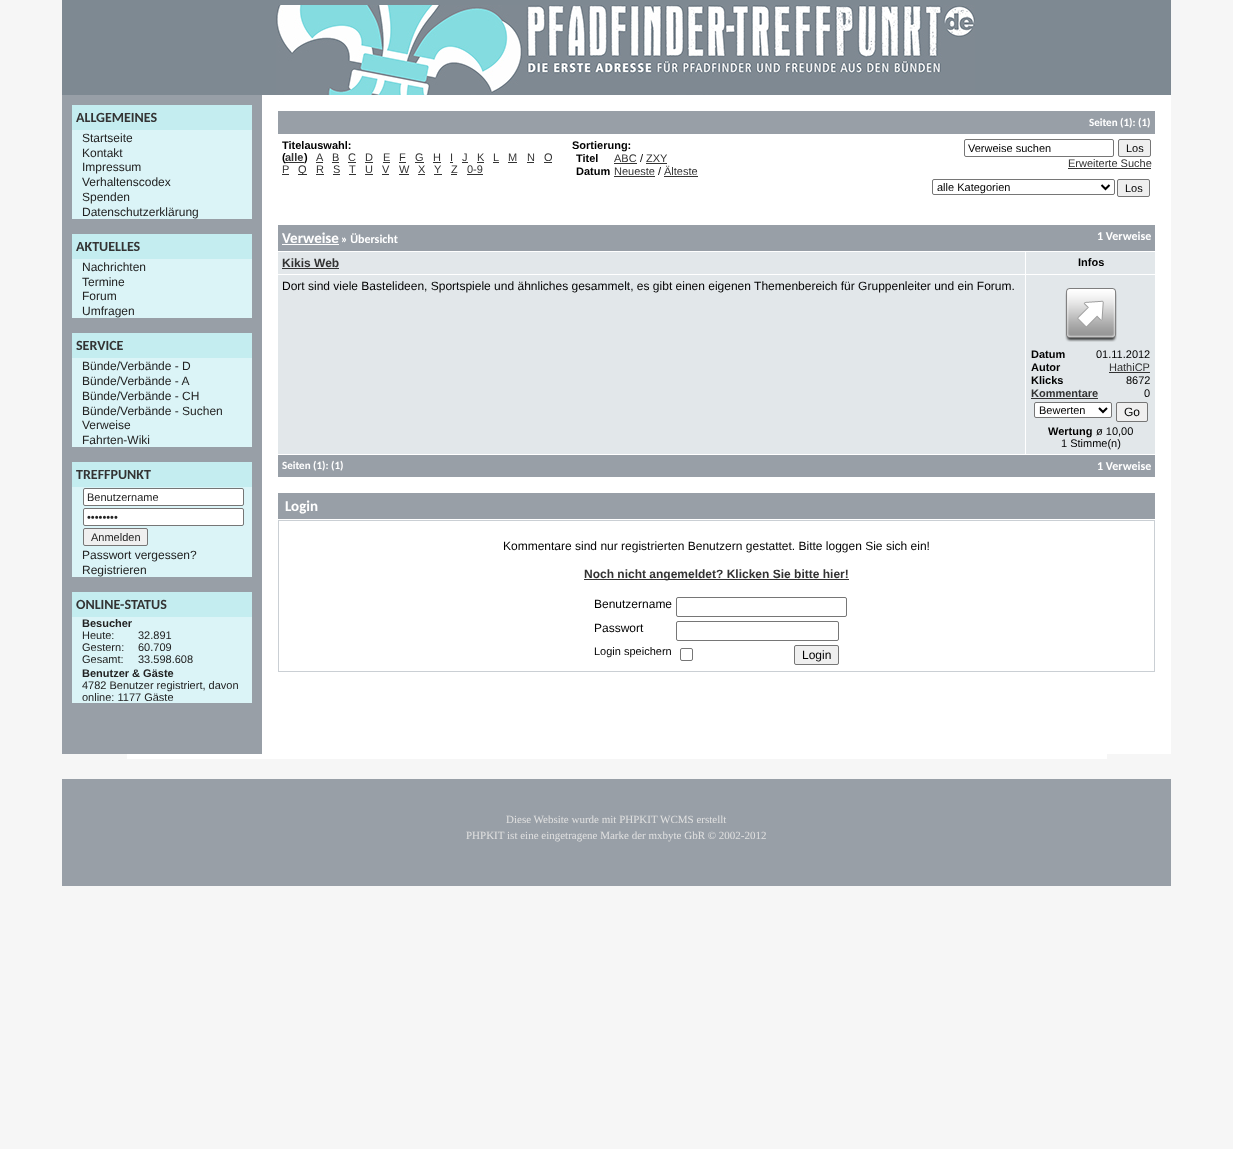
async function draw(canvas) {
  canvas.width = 1233
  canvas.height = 1149
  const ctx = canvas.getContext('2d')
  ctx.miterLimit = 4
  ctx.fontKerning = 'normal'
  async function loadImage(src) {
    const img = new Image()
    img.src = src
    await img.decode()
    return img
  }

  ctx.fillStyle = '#f6f6f6'
  ctx.fillRect(0, 0, 1233, 1149)
  ctx.fillStyle = '#7e8992'
  ctx.fillRect(62, 0, 1109, 95)
  ctx.drawImage(await loadImage('image0.png'), 276, 5, 699, 90)
  ctx.fillStyle = '#989fa7'
  ctx.fillRect(62, 95, 200, 659)
  ctx.fillStyle = '#c4edf0'
  ctx.fillRect(72, 105, 180, 25)
  ctx.font = 'bold 14px Carlito'
  ctx.fillStyle = '#333'
  ctx.fillText('ALLGEMEINES', 76, 122)
  ctx.fillStyle = '#dbf4f7'
  ctx.fillRect(72, 130, 180, 89)
  ctx.font = '12px Liberation Sans'
  ctx.fillStyle = '#222'
  ctx.fillText('Startseite', 82, 142)
  ctx.fillText('Kontakt', 82, 157)
  ctx.fillText('Impressum', 82, 171)
  ctx.fillText('Verhaltenscodex', 82, 186)
  ctx.fillText('Spenden', 82, 201)
  ctx.fillText('Datenschutzerklärung', 82, 216)
  ctx.fillStyle = '#c4edf0'
  ctx.fillRect(72, 234, 180, 25)
  ctx.font = 'bold 14px Carlito'
  ctx.fillStyle = '#333'
  ctx.fillText('AKTUELLES', 76, 251)
  ctx.fillStyle = '#dbf4f7'
  ctx.fillRect(72, 259, 180, 59)
  ctx.font = '12px Liberation Sans'
  ctx.fillStyle = '#222'
  ctx.fillText('Nachrichten', 82, 271)
  ctx.fillText('Termine', 82, 286)
  ctx.fillText('Forum', 82, 300)
  ctx.fillText('Umfragen', 82, 315)
  ctx.fillStyle = '#c4edf0'
  ctx.fillRect(72, 333, 180, 25)
  ctx.font = 'bold 14px Carlito'
  ctx.fillStyle = '#333'
  ctx.fillText('SERVICE', 76, 350)
  ctx.fillStyle = '#dbf4f7'
  ctx.fillRect(72, 358, 180, 89)
  ctx.font = '12px Liberation Sans'
  ctx.fillStyle = '#222'
  ctx.fillText('Bünde/Verbände - D', 82, 370)
  ctx.fillText('Bünde/Verbände - A', 82, 385)
  ctx.fillText('Bünde/Verbände - CH', 82, 400)
  ctx.fillText('Bünde/Verbände - Suchen', 82, 415)
  ctx.fillText('Verweise', 82, 429)
  ctx.fillText('Fahrten-Wiki', 82, 444)
  ctx.fillStyle = '#c4edf0'
  ctx.fillRect(72, 462, 180, 25)
  ctx.font = 'bold 14px Carlito'
  ctx.fillStyle = '#333'
  ctx.fillText('TREFFPUNKT', 76, 479)
  ctx.fillStyle = '#dbf4f7'
  ctx.fillRect(72, 487, 180, 90)
  ctx.fillStyle = '#fff'
  ctx.beginPath()
  ctx.roundRect(83.5, 488.5, 160, 17, 1.5)
  ctx.fill()
  ctx.strokeStyle = '#767676'
  ctx.stroke()
  ctx.font = '11px Liberation Sans'
  ctx.fillStyle = '#222'
  ctx.fillText('Benutzername', 87, 501)
  ctx.fillStyle = '#fff'
  ctx.beginPath()
  ctx.roundRect(83.5, 508.5, 160, 17, 1.5)
  ctx.fill()
  ctx.stroke()
  ctx.fillStyle = '#222'
  ctx.fillText('••••••••', 87, 521)
  ctx.fillStyle = '#efefef'
  ctx.beginPath()
  ctx.roundRect(83.5, 528.5, 64, 17, 1.5)
  ctx.fill()
  ctx.stroke()
  ctx.fillStyle = '#222'
  ctx.fillText('Anmelden', 91, 541)
  ctx.font = '12px Liberation Sans'
  ctx.fillText('Passwort vergessen?', 82, 559)
  ctx.fillText('Registrieren', 82, 574)
  ctx.fillStyle = '#c4edf0'
  ctx.fillRect(72, 592, 180, 25)
  ctx.font = 'bold 14px Carlito'
  ctx.fillStyle = '#333'
  ctx.fillText('ONLINE-STATUS', 76, 609)
  ctx.fillStyle = '#dbf4f7'
  ctx.fillRect(72, 617, 180, 86)
  ctx.font = 'bold 11px Liberation Sans'
  ctx.fillStyle = '#222'
  ctx.fillText('Besucher', 82, 627)
  ctx.font = '11px Liberation Sans'
  ctx.fillText('Heute:', 82, 639)
  ctx.fillText('32.891', 138, 639)
  ctx.fillText('Gestern:', 82, 651)
  ctx.fillText('60.709', 138, 651)
  ctx.fillText('Gesamt:', 82, 663)
  ctx.fillText('33.598.608', 138, 663)
  ctx.font = 'bold 11px Liberation Sans'
  ctx.fillText('Benutzer & Gäste', 82, 677)
  ctx.font = '11px Liberation Sans'
  ctx.fillText('4782 Benutzer registriert, davon', 82, 689)
  ctx.fillText('online: 1177 Gäste', 82, 701)
  ctx.fillStyle = '#fff'
  ctx.fillRect(262, 95, 909, 659)
  ctx.fillStyle = '#989fa7'
  ctx.fillRect(278, 111, 877, 23)
  ctx.font = 'bold 11px Carlito'
  ctx.fillStyle = '#fff'
  ctx.fillText('Seiten (1): (1)', 1089, 126)
  ctx.font = 'bold 11px Liberation Sans'
  ctx.fillStyle = '#000'
  ctx.fillText('Titelauswahl:', 282, 149)
  ctx.fillText('(', 282, 161)
  ctx.fillStyle = '#333'
  ctx.fillRect(285, 162, 19, 1)
  ctx.fillText('alle', 285, 161)
  ctx.fillStyle = '#000'
  ctx.fillText(')', 304, 161)
  ctx.font = '11px Liberation Sans'
  ctx.fillStyle = '#333'
  ctx.fillText('A', 316, 161)
  ctx.fillRect(316, 162, 7, 1)
  ctx.fillText('B', 332, 161)
  ctx.fillRect(332, 162, 7, 1)
  ctx.fillText('C', 348, 161)
  ctx.fillRect(348, 162, 8, 1)
  ctx.fillText('D', 365, 161)
  ctx.fillRect(365, 162, 8, 1)
  ctx.fillText('E', 383, 161)
  ctx.fillRect(383, 162, 7, 1)
  ctx.fillText('F', 399, 161)
  ctx.fillRect(399, 162, 7, 1)
  ctx.fillText('G', 415, 161)
  ctx.fillRect(415, 162, 9, 1)
  ctx.fillText('H', 433, 161)
  ctx.fillRect(433, 162, 8, 1)
  ctx.fillText('I', 450, 161)
  ctx.fillRect(450, 162, 3, 1)
  ctx.fillText('J', 462, 161)
  ctx.fillRect(462, 162, 6, 1)
  ctx.fillText('K', 477, 161)
  ctx.fillRect(477, 162, 7, 1)
  ctx.fillText('L', 493, 161)
  ctx.fillRect(493, 162, 6, 1)
  ctx.fillText('M', 508, 161)
  ctx.fillRect(508, 162, 9, 1)
  ctx.fillText('N', 527, 161)
  ctx.fillRect(527, 162, 7, 1)
  ctx.fillText('O', 544, 161)
  ctx.fillRect(544, 162, 8, 1)
  ctx.fillText('P', 282, 173)
  ctx.fillRect(282, 174, 7, 1)
  ctx.fillRect(298, 174, 9, 1)
  ctx.fillText('Q', 298, 173)
  ctx.fillText('R', 316, 173)
  ctx.fillRect(316, 174, 8, 1)
  ctx.fillText('S', 333, 173)
  ctx.fillRect(333, 174, 7, 1)
  ctx.fillText('T', 349, 173)
  ctx.fillRect(349, 174, 7, 1)
  ctx.fillText('U', 365, 173)
  ctx.fillRect(365, 174, 8, 1)
  ctx.fillText('V', 382, 173)
  ctx.fillRect(382, 174, 7, 1)
  ctx.fillText('W', 399, 173)
  ctx.fillRect(399, 174, 10, 1)
  ctx.fillText('X', 418, 173)
  ctx.fillRect(418, 174, 7, 1)
  ctx.fillText('Y', 434, 173)
  ctx.fillRect(434, 174, 8, 1)
  ctx.fillText('Z', 451, 173)
  ctx.fillRect(451, 174, 6, 1)
  ctx.fillText('0-9', 467, 173)
  ctx.fillRect(467, 174, 16, 1)
  ctx.font = 'bold 11px Liberation Sans'
  ctx.fillStyle = '#000'
  ctx.fillText('Sortierung:', 572, 149)
  ctx.fillText('Titel', 576, 162)
  ctx.font = '11px Liberation Sans'
  ctx.fillStyle = '#333'
  ctx.fillText('ABC', 614, 162)
  ctx.fillRect(614, 163, 23, 1)
  ctx.fillStyle = '#000'
  ctx.fillText('/', 640, 162)
  ctx.fillStyle = '#333'
  ctx.fillText('ZXY', 646, 162)
  ctx.fillRect(646, 163, 21, 1)
  ctx.font = 'bold 11px Liberation Sans'
  ctx.fillStyle = '#000'
  ctx.fillText('Datum', 576, 175)
  ctx.font = '11px Liberation Sans'
  ctx.fillStyle = '#333'
  ctx.fillText('Neueste', 614, 175)
  ctx.fillRect(614, 176, 41, 1)
  ctx.fillStyle = '#000'
  ctx.fillText('/', 658, 175)
  ctx.fillStyle = '#333'
  ctx.fillRect(664, 176, 34, 1)
  ctx.fillText('Älteste', 664, 175)
  ctx.beginPath()
  ctx.roundRect(964.5, 139.5, 149, 17, 1.5)
  ctx.stroke()
  ctx.fillStyle = '#000'
  ctx.fillText('Verweise suchen', 968, 152)
  ctx.fillStyle = '#efefef'
  ctx.beginPath()
  ctx.roundRect(1118.5, 139.5, 32, 17, 1.5)
  ctx.fill()
  ctx.stroke()
  ctx.fillStyle = '#000'
  ctx.fillText('Los', 1126, 152)
  ctx.fillStyle = '#333'
  ctx.fillText('Erweiterte Suche', 1068, 167)
  ctx.fillRect(1068, 168, 83, 1)
  ctx.beginPath()
  ctx.roundRect(932.5, 179.5, 182, 15, 1.5)
  ctx.stroke()
  ctx.beginPath()
  ctx.moveTo(1101.5, 185)
  ctx.lineTo(1105.5, 189)
  ctx.lineTo(1109.5, 185)
  ctx.strokeStyle = '#000'
  ctx.lineWidth = 2
  ctx.stroke()
  ctx.fillStyle = '#000'
  ctx.fillText('alle Kategorien', 937, 191)
  ctx.fillStyle = '#efefef'
  ctx.beginPath()
  ctx.roundRect(1117.5, 179.5, 32, 17, 1.5)
  ctx.fill()
  ctx.strokeStyle = '#767676'
  ctx.lineWidth = 1
  ctx.stroke()
  ctx.fillStyle = '#000'
  ctx.fillText('Los', 1125, 192)
  ctx.fillStyle = '#989fa7'
  ctx.fillRect(278, 225, 877, 26)
  ctx.font = 'bold 15px Carlito'
  ctx.fillStyle = '#fff'
  ctx.fillText('Verweise', 282, 243)
  ctx.fillRect(282, 244, 57, 1)
  ctx.font = 'bold 12px Carlito'
  ctx.fillText('» Übersicht', 341, 243)
  ctx.fillText('1 Verweise', 1097, 240)
  ctx.fillStyle = '#e2e7ea'
  ctx.fillRect(278, 252, 747, 22)
  ctx.font = 'bold 12px Liberation Sans'
  ctx.fillStyle = '#333'
  ctx.fillText('Kikis Web', 282, 267)
  ctx.fillRect(282, 268, 57, 1)
  ctx.fillStyle = '#e2e7ea'
  ctx.fillRect(1026, 252, 129, 22)
  ctx.font = 'bold 11px Liberation Sans'
  ctx.fillStyle = '#000'
  ctx.fillText('Infos', 1078, 266)
  ctx.fillStyle = '#e2e7ea'
  ctx.fillRect(278, 275, 747, 179)
  ctx.font = '12px Liberation Sans'
  ctx.fillStyle = '#000'
  ctx.fillText('Dort sind viele Bastelideen, Sportspiele und ähnliches gesammelt, es gibt einen eigenen Themenbereich für Gruppenleiter und ein Forum.', 282, 290)
  ctx.fillStyle = '#e2e7ea'
  ctx.fillRect(1026, 275, 129, 179)
  ctx.drawImage(await loadImage('image1.png'), 1065, 288, 52, 54)
  ctx.font = 'bold 11px Liberation Sans'
  ctx.fillStyle = '#000'
  ctx.fillText('Datum', 1031, 358)
  ctx.font = '11px Liberation Sans'
  ctx.fillText('01.11.2012', 1096, 358)
  ctx.font = 'bold 11px Liberation Sans'
  ctx.fillText('Autor', 1031, 371)
  ctx.font = '11px Liberation Sans'
  ctx.fillStyle = '#333'
  ctx.fillText('HathiCP', 1109, 371)
  ctx.fillRect(1109, 372, 41, 1)
  ctx.font = 'bold 11px Liberation Sans'
  ctx.fillStyle = '#000'
  ctx.fillText('Klicks', 1031, 384)
  ctx.font = '11px Liberation Sans'
  ctx.fillText('8672', 1126, 384)
  ctx.font = 'bold 11px Liberation Sans'
  ctx.fillStyle = '#333'
  ctx.fillText('Kommentare', 1031, 397)
  ctx.fillRect(1031, 398, 67, 1)
  ctx.font = '11px Liberation Sans'
  ctx.fillStyle = '#000'
  ctx.fillText('0', 1144, 397)
  ctx.fillStyle = '#fff'
  ctx.beginPath()
  ctx.roundRect(1034.5, 402.5, 77, 15, 1.5)
  ctx.fill()
  ctx.stroke()
  ctx.beginPath()
  ctx.moveTo(1099, 408)
  ctx.lineTo(1103, 412)
  ctx.lineTo(1107, 408)
  ctx.strokeStyle = '#000'
  ctx.lineWidth = 2
  ctx.stroke()
  ctx.fillStyle = '#000'
  ctx.fillText('Bewerten', 1039, 414)
  ctx.fillStyle = '#efefef'
  ctx.beginPath()
  ctx.roundRect(1116.5, 402.5, 31, 19, 1.5)
  ctx.fill()
  ctx.strokeStyle = '#767676'
  ctx.lineWidth = 1
  ctx.stroke()
  ctx.font = '12px Liberation Sans'
  ctx.fillStyle = '#000'
  ctx.fillText('Go', 1124, 416)
  ctx.font = 'bold 11px Liberation Sans'
  ctx.fillText('Wertung', 1048, 435)
  ctx.font = '11px Liberation Sans'
  ctx.fillText('ø 10,00', 1096, 435)
  ctx.fillText('1 Stimme(n)', 1061, 447)
  ctx.fillStyle = '#989fa7'
  ctx.fillRect(278, 455, 877, 22)
  ctx.font = 'bold 11px Carlito'
  ctx.fillStyle = '#fff'
  ctx.fillText('Seiten (1): (1)', 282, 469)
  ctx.font = 'bold 12px Carlito'
  ctx.fillText('1 Verweise', 1097, 470)
  ctx.fillStyle = '#989fa7'
  ctx.fillRect(278, 493, 877, 26)
  ctx.font = 'bold 15px Carlito'
  ctx.fillStyle = '#fff'
  ctx.fillText('Login', 285, 511)
  ctx.strokeStyle = '#cacfd4'
  ctx.strokeRect(278.5, 520.5, 876, 151)
  ctx.font = '12px Liberation Sans'
  ctx.fillStyle = '#000'
  ctx.fillText('Kommentare sind nur registrierten Benutzern gestattet. Bitte loggen Sie sich ein!', 503, 550)
  ctx.fillStyle = '#333'
  ctx.fillRect(584, 579, 265, 1)
  ctx.font = 'bold 12px Liberation Sans'
  ctx.fillText('Noch nicht angemeldet? Klicken Sie bitte hier!', 584, 578)
  ctx.font = '12px Liberation Sans'
  ctx.fillStyle = '#000'
  ctx.fillText('Benutzername', 594, 608)
  ctx.beginPath()
  ctx.roundRect(676.5, 597.5, 170, 19, 1.5)
  ctx.strokeStyle = '#767676'
  ctx.stroke()
  ctx.fillText('Passwort', 594, 632)
  ctx.beginPath()
  ctx.roundRect(676.5, 621.5, 162, 19, 1.5)
  ctx.stroke()
  ctx.font = '11px Liberation Sans'
  ctx.fillText('Login speichern', 594, 655)
  ctx.beginPath()
  ctx.roundRect(680.5, 648.5, 12, 12, 1.5)
  ctx.stroke()
  ctx.fillStyle = '#efefef'
  ctx.beginPath()
  ctx.roundRect(794.5, 645.5, 44, 19, 1.5)
  ctx.fill()
  ctx.stroke()
  ctx.font = '12px Liberation Sans'
  ctx.fillStyle = '#000'
  ctx.fillText('Login', 802, 659)
  ctx.fillStyle = '#fff'
  ctx.fillRect(127, 754, 980, 5)
  ctx.fillStyle = '#989fa7'
  ctx.fillRect(62, 779, 1109, 107)
  ctx.font = '11px Liberation Serif'
  ctx.fillStyle = '#e0e0e0'
  ctx.fillText('Diese Website wurde mit PHPKIT WCMS erstellt', 506, 823)
  ctx.fillText('PHPKIT ist eine eingetragene Marke der mxbyte GbR © 2002-2012', 466, 839)
}

draw(document.querySelector('canvas'))
